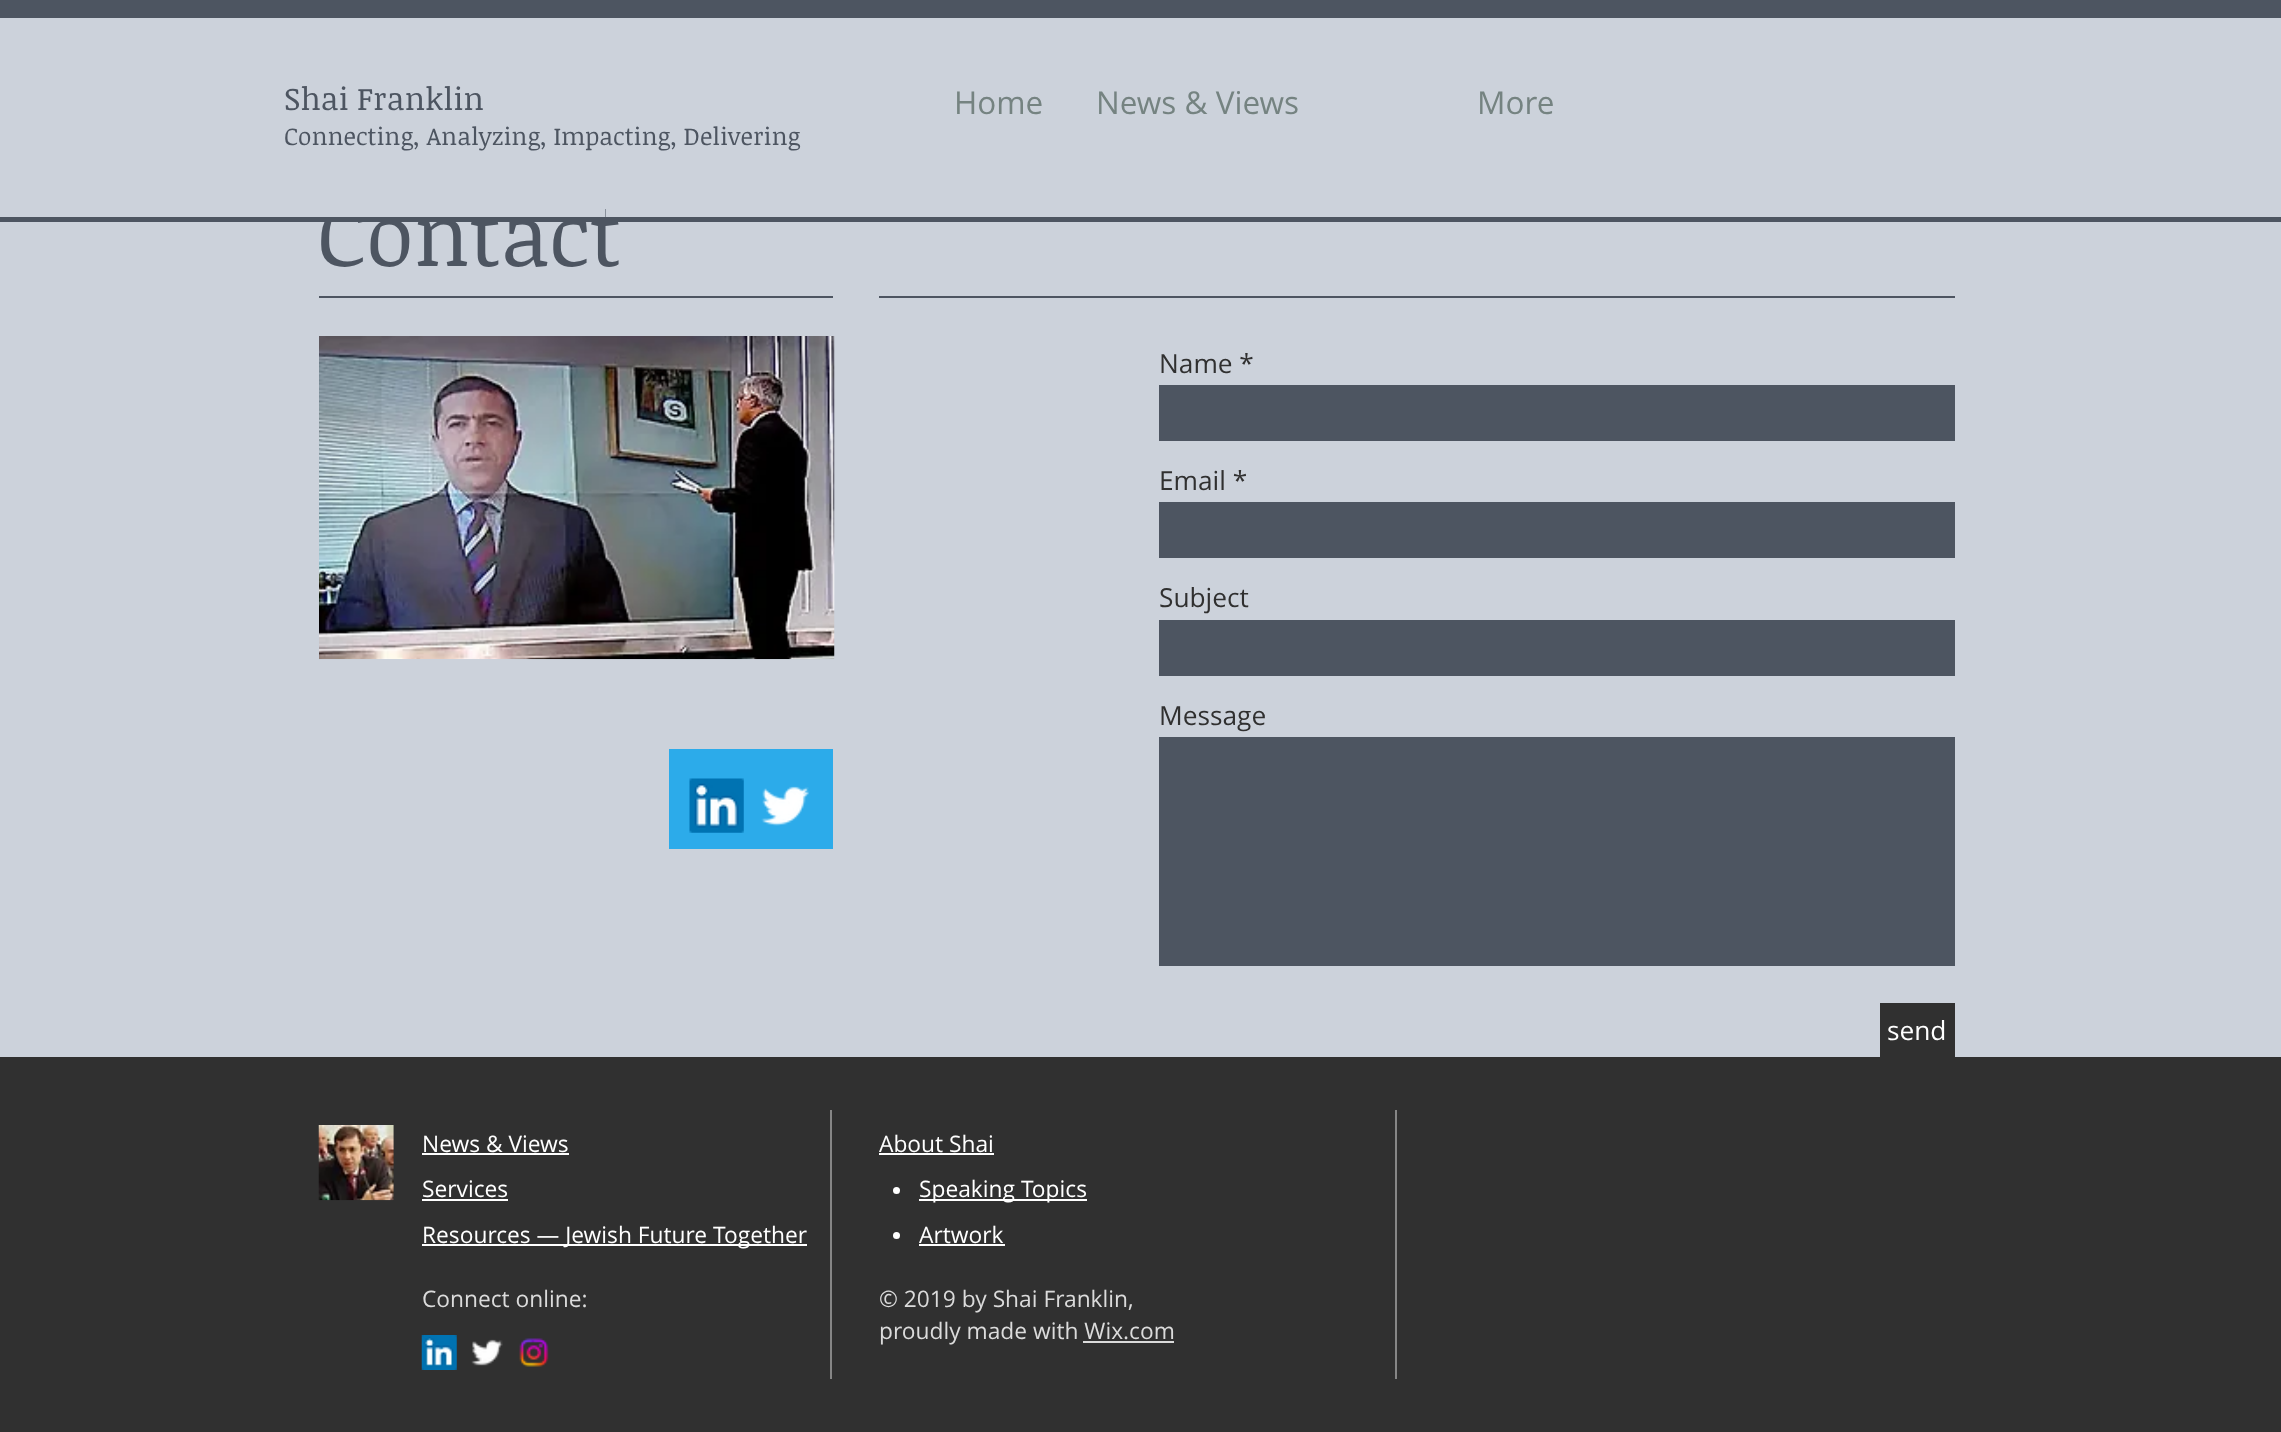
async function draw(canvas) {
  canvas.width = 2281
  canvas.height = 1432
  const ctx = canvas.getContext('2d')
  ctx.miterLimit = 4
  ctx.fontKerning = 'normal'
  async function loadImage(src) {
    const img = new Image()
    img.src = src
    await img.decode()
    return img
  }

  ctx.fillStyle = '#ccd2db'
  ctx.fillRect(0, 0, 2281, 1432)
  ctx.font = '86px Noticia Text'
  ctx.fillStyle = '#4d5561'
  ctx.fillText('Contact', 317, 266)
  ctx.fillStyle = '#ccd2db'
  ctx.fillRect(327, 208, 278, 9)
  ctx.fillStyle = '#4d5561'
  ctx.fillRect(0, 0, 2281, 18)
  ctx.fillRect(0, 217, 2281, 5)
  ctx.font = '31.5px Noticia Text'
  ctx.fillText('Shai Franklin', 284, 110)
  ctx.font = '24.5px Noticia Text'
  ctx.fillText('Connecting, Analyzing, Impacting, Delivering', 284, 145)
  ctx.font = '31.5px Open Sans'
  ctx.fillStyle = '#758381'
  ctx.fillText('Home', 954, 114)
  ctx.fillText('News & Views', 1096, 114)
  ctx.fillText('More', 1477, 114)
  ctx.fillStyle = '#4d5561'
  ctx.fillRect(319, 296, 514, 2)
  ctx.fillRect(879, 296, 1076, 2)
  ctx.drawImage(await loadImage('image0.png'), 319, 336, 516, 324)
  ctx.font = '26.25px Open Sans'
  ctx.fillStyle = '#303030'
  ctx.fillText('Name *', 1159, 373)
  ctx.fillStyle = '#4d5561'
  ctx.fillRect(1159, 385, 796, 56)
  ctx.fillStyle = '#303030'
  ctx.fillText('Email *', 1159, 490)
  ctx.fillStyle = '#4d5561'
  ctx.fillRect(1159, 502, 796, 56)
  ctx.fillStyle = '#303030'
  ctx.fillText('Subject', 1159, 607)
  ctx.fillStyle = '#4d5561'
  ctx.fillRect(1159, 620, 796, 56)
  ctx.fillStyle = '#303030'
  ctx.fillText('Message', 1159, 725)
  ctx.fillStyle = '#4d5561'
  ctx.fillRect(1159, 737, 796, 229)
  ctx.fillStyle = '#303030'
  ctx.fillRect(1880, 1003, 75, 54)
  ctx.fillStyle = '#fff'
  ctx.fillText('send', 1887, 1040)
  ctx.fillStyle = '#2cabea'
  ctx.fillRect(669, 749, 164, 100)
  ctx.drawImage(await loadImage('image1.png'), 689, 778, 55, 55)
  ctx.drawImage(await loadImage('image2.png'), 761, 786, 49, 40)
  ctx.fillStyle = '#303030'
  ctx.fillRect(0, 1057, 2281, 375)
  ctx.drawImage(await loadImage('image3.png'), 318, 1125, 76, 76)
  ctx.font = '22.75px Open Sans'
  ctx.fillStyle = '#fff'
  ctx.fillText('News & Views', 422, 1152)
  ctx.fillRect(422, 1153, 147, 2)
  ctx.fillText('Services', 422, 1197)
  ctx.fillRect(422, 1199, 86, 2)
  ctx.fillRect(422, 1244, 385, 2)
  ctx.fillText('Resources — Jewish Future Together', 422, 1243)
  ctx.fillStyle = '#868686'
  ctx.fillRect(830, 1110, 2, 269)
  ctx.fillStyle = '#fff'
  ctx.fillText('About Shai', 879, 1152)
  ctx.fillRect(879, 1153, 115, 2)
  ctx.beginPath()
  ctx.arc(896.5, 1190.5, 3.5, 0, 2 * Math.PI)
  ctx.fill()
  ctx.fillRect(919, 1199, 168, 2)
  ctx.fillText('Speaking Topics', 919, 1197)
  ctx.beginPath()
  ctx.arc(896.5, 1235.5, 3.5, 0, 2 * Math.PI)
  ctx.fill()
  ctx.fillText('Artwork', 919, 1243)
  ctx.fillRect(919, 1244, 86, 2)
  ctx.fillStyle = '#868686'
  ctx.fillRect(1395, 1110, 2, 269)
  ctx.fillStyle = '#dbdbdb'
  ctx.fillText('Connect online:', 422, 1307)
  ctx.fillText('© 2019 by Shai Franklin,', 879, 1307)
  ctx.fillText('proudly made with Wix.com', 879, 1339)
  ctx.fillRect(1083, 1341, 91, 2)
  ctx.drawImage(await loadImage('image4.png'), 421, 1335, 36, 35)
  ctx.drawImage(await loadImage('image5.png'), 471, 1339, 32, 27)
  ctx.drawImage(await loadImage('image6.png'), 519, 1338, 30, 29)
}

draw(document.querySelector('canvas'))
